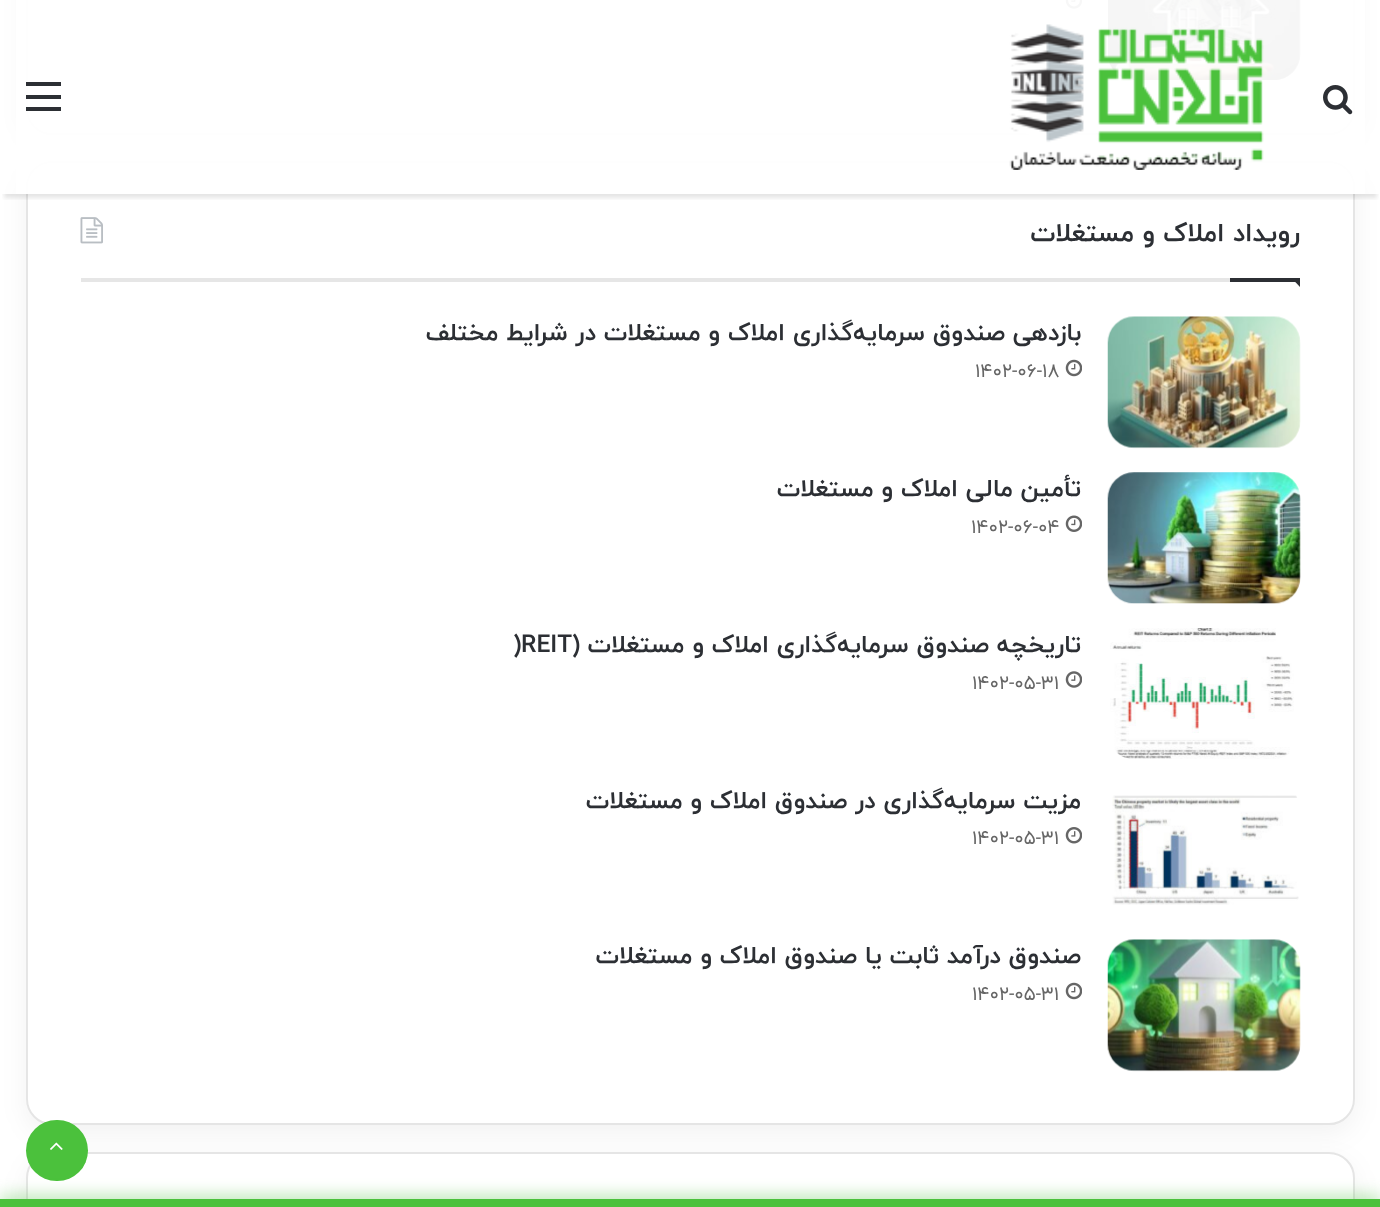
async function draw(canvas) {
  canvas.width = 1380
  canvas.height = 1207
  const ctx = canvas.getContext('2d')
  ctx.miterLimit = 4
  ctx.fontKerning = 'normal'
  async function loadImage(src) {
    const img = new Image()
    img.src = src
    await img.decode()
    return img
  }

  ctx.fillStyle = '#fff'
  ctx.fillRect(0, 0, 1380, 1207)
  ctx.fillStyle = '#0000000d'
  ctx.filter = 'blur(13px)'
  ctx.beginPath()
  ctx.roundRect(26, -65, 1329, 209, 26)
  ctx.fill()
  ctx.filter = 'none'
  ctx.fillStyle = '#fff'
  ctx.beginPath()
  ctx.roundRect(26, -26, 1329, 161, 26)
  ctx.fill()
  ctx.beginPath()
  ctx.roundRect(27, -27, 1327, 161, 25)
  ctx.strokeStyle = '#0000001a'
  ctx.lineWidth = 2
  ctx.stroke()
  ctx.drawImage(await loadImage('image2.png'), 1108, 0, 193, 81)
  ctx.drawImage(await loadImage('image3.png'), 1065, 0, 17, 9)
  ctx.fillStyle = '#0000000d'
  ctx.filter = 'blur(13px)'
  ctx.beginPath()
  ctx.roundRect(26, 170, 1329, 964, 26)
  ctx.fill()
  ctx.filter = 'none'
  ctx.fillStyle = '#fff'
  ctx.beginPath()
  ctx.roundRect(26, 161, 1329, 964, 26)
  ctx.fill()
  ctx.beginPath()
  ctx.roundRect(27, 162, 1327, 962, 25)
  ctx.stroke()
  ctx.save()
  ctx.beginPath()
  ctx.rect(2, 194, 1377, 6)
  ctx.clip()
  ctx.fillStyle = '#0000001a'
  ctx.filter = 'blur(2px)'
  ctx.beginPath()
  ctx.rect(4, 11, 1373, 187)
  ctx.fill()
  ctx.filter = 'none'
  ctx.restore()
  ctx.fillStyle = '#fffffff2'
  ctx.fillRect(16, 0, 1349, 194)
  ctx.drawImage(await loadImage('image0.png'), 1323, 85, 30, 30)
  ctx.drawImage(await loadImage('image1.png'), 1009, 24, 255, 146)
  ctx.fillStyle = '#2c2f34'
  ctx.fillRect(26, 95, 35, 4)
  ctx.fillRect(26, 82, 35, 4)
  ctx.fillRect(26, 107, 35, 4)
  ctx.fillStyle = '#e6e6e6'
  ctx.fillRect(81, 278, 1149, 4)
  ctx.direction = 'rtl'
  ctx.font = 'bold 26.25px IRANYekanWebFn'
  ctx.fillStyle = '#2c2f34'
  ctx.fillText('رویداد املاک و مستغلات', 1300, 241)
  ctx.drawImage(await loadImage('image4.png'), 80, 217, 23, 27)
  ctx.beginPath()
  ctx.moveTo(1291.5, 278)
  ctx.lineTo(1300, 278)
  ctx.lineTo(1300, 287)
  ctx.closePath()
  ctx.fill()
  ctx.fillRect(1230, 278, 70, 4)
  ctx.drawImage(await loadImage('image5.png'), 1107, 316, 194, 133)
  ctx.font = 'bold 24.5px IRANYekanWebFn'
  ctx.fillText('بازدهی صندوق سرمایه‌گذاری املاک و مستغلات در شرایط مختلف', 1081, 340)
  ctx.drawImage(await loadImage('image6.png'), 1065, 359, 17, 18)
  ctx.direction = 'ltr'
  ctx.font = '19.25px IRANYekanWebFn'
  ctx.fillStyle = '#666'
  ctx.fillText('۱۴۰۲-۰۶-۱۸', 975, 377)
  ctx.drawImage(await loadImage('image7.png'), 1107, 472, 194, 132)
  ctx.direction = 'rtl'
  ctx.font = 'bold 24.5px IRANYekanWebFn'
  ctx.fillStyle = '#2c2f34'
  ctx.fillText('تأمین مالی املاک و مستغلات', 1081, 496)
  ctx.drawImage(await loadImage('image8.png'), 1065, 515, 17, 17)
  ctx.direction = 'ltr'
  ctx.font = '19.25px IRANYekanWebFn'
  ctx.fillStyle = '#666'
  ctx.fillText('۱۴۰۲-۰۶-۰۴', 971, 533)
  ctx.drawImage(await loadImage('image9.png'), 1110, 628, 184, 131)
  ctx.direction = 'rtl'
  ctx.font = 'bold 24.5px IRANYekanWebFn'
  ctx.fillStyle = '#2c2f34'
  ctx.fillText('تاریخچه صندوق سرمایه‌گذاری املاک و مستغلات (', 1081, 652)
  ctx.direction = 'ltr'
  ctx.fillText(')REIT', 513, 652)
  ctx.drawImage(await loadImage('image10.png'), 1065, 671, 17, 17)
  ctx.font = '19.25px IRANYekanWebFn'
  ctx.fillStyle = '#666'
  ctx.fillText('۱۴۰۲-۰۵-۳۱', 972, 689)
  ctx.drawImage(await loadImage('image11.png'), 1112, 795, 187, 110)
  ctx.direction = 'rtl'
  ctx.font = 'bold 24.5px IRANYekanWebFn'
  ctx.fillStyle = '#2c2f34'
  ctx.fillText('مزیت سرمایه‌گذاری در صندوق املاک و مستغلات', 1081, 808)
  ctx.drawImage(await loadImage('image12.png'), 1065, 827, 17, 17)
  ctx.direction = 'ltr'
  ctx.font = '19.25px IRANYekanWebFn'
  ctx.fillStyle = '#666'
  ctx.fillText('۱۴۰۲-۰۵-۳۱', 972, 844)
  ctx.drawImage(await loadImage('image13.png'), 1107, 939, 194, 133)
  ctx.direction = 'rtl'
  ctx.font = 'bold 24.5px IRANYekanWebFn'
  ctx.fillStyle = '#2c2f34'
  ctx.fillText('صندوق درآمد ثابت یا صندوق املاک و مستغلات', 1081, 963)
  ctx.drawImage(await loadImage('image6.png'), 1065, 982, 17, 18)
  ctx.direction = 'ltr'
  ctx.font = '19.25px IRANYekanWebFn'
  ctx.fillStyle = '#666'
  ctx.fillText('۱۴۰۲-۰۵-۳۱', 972, 1000)
  ctx.fillStyle = '#0000000d'
  ctx.filter = 'blur(13px)'
  ctx.beginPath()
  ctx.roundRect(26, 1160, 1329, 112, 26)
  ctx.fill()
  ctx.filter = 'none'
  ctx.fillStyle = '#fff'
  ctx.beginPath()
  ctx.roundRect(27, 1153, 1327, 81, 25)
  ctx.fill()
  ctx.strokeStyle = '#e5e5e5'
  ctx.stroke()
  ctx.fillStyle = '#4bc13c'
  ctx.beginPath()
  ctx.roundRect(26, 1120, 62, 61, 30.5)
  ctx.fill()
  ctx.drawImage(await loadImage('image14.png'), 50, 1142, 13, 8)
  ctx.fillStyle = '#4bc13cb3'
  ctx.filter = 'blur(9px)'
  ctx.beginPath()
  ctx.rect(0, 1199, 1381, 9)
  ctx.fill()
  ctx.filter = 'none'
  ctx.fillStyle = '#4bc13c'
  ctx.fillRect(0, 1199, 1380, 8)
}

draw(document.querySelector('canvas'))
